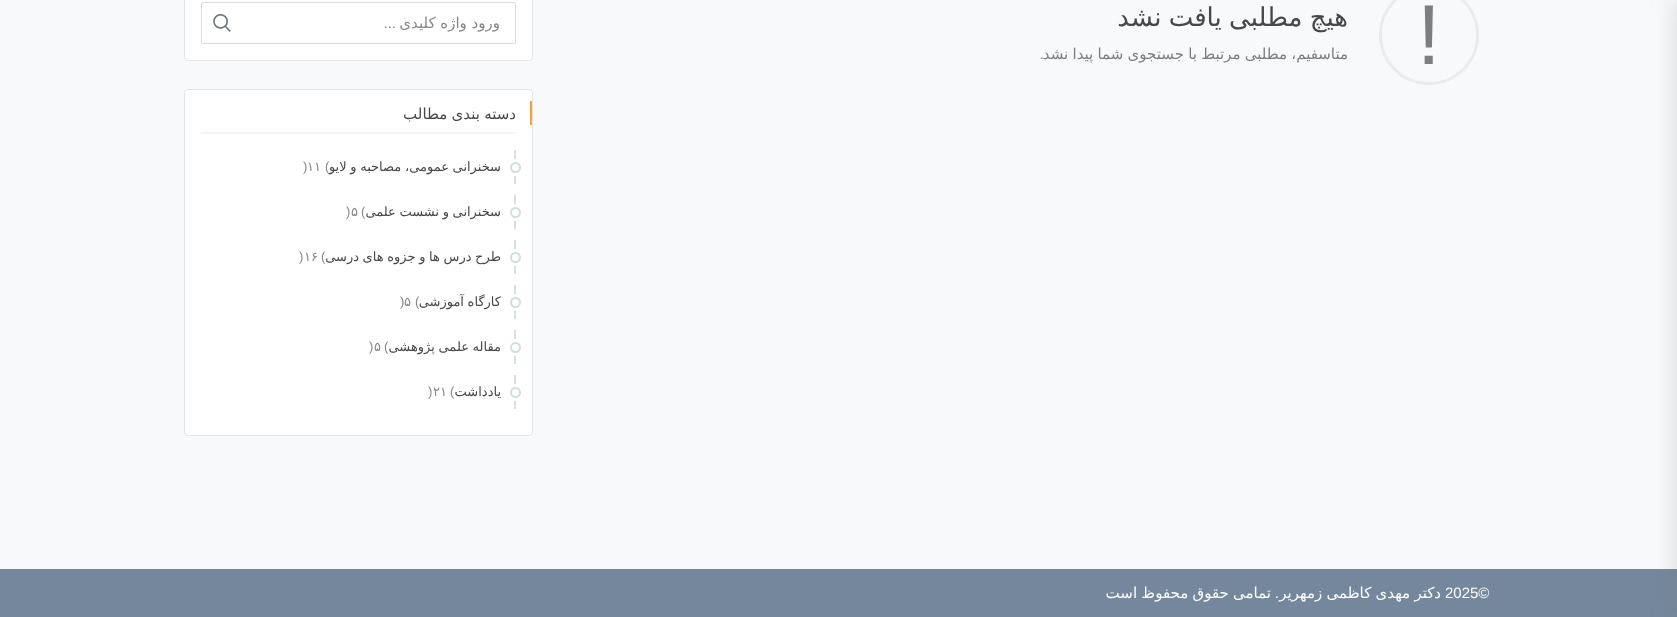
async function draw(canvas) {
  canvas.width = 1677
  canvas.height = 617
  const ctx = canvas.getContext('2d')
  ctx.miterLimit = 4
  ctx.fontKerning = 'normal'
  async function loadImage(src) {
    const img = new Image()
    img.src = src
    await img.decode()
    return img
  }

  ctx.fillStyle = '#f8f9fa'
  ctx.fillRect(0, 0, 1677, 617)
  ctx.fillStyle = '#74879c'
  ctx.fillRect(0, 569, 1677, 48)
  ctx.fillStyle = '#73767f2b'
  ctx.filter = 'blur(10px)'
  ctx.beginPath()
  ctx.rect(1672, 0, 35, 617)
  ctx.fill()
  ctx.filter = 'none'
  ctx.beginPath()
  ctx.arc(1429, 35, 48.5, 0, 2 * Math.PI)
  ctx.strokeStyle = '#e9ecef'
  ctx.lineWidth = 3
  ctx.stroke()
  ctx.font = '85px Liberation Sans'
  ctx.fillStyle = '#7d7e7f'
  ctx.fillText('!', 1417, 64)
  ctx.wordSpacing = '-1px'
  ctx.direction = 'rtl'
  ctx.font = '26px DejaVu Sans'
  ctx.fillStyle = '#464749'
  ctx.fillText('هیچ مطلبی یافت نشد', 1348, 26)
  ctx.wordSpacing = '-0.5px'
  ctx.font = '15px DejaVu Sans'
  ctx.fillStyle = '#7d7e7f'
  ctx.fillText('متاسفیم، مطلبی مرتبط با جستجوی شما پیدا نشد', 1348, 59)
  ctx.wordSpacing = '0px'
  ctx.font = '15px Liberation Sans'
  ctx.fillText('.', 1044, 59)
  ctx.fillStyle = '#fff'
  ctx.beginPath()
  ctx.roundRect(184.5, -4.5, 348, 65, 3.5)
  ctx.fill()
  ctx.strokeStyle = '#e5e5e5'
  ctx.lineWidth = 1
  ctx.stroke()
  ctx.beginPath()
  ctx.roundRect(201.5, 2.5, 314, 41, 1.5)
  ctx.strokeStyle = '#dcdcdc'
  ctx.stroke()
  ctx.font = '15px DejaVu Sans'
  ctx.fillStyle = '#888'
  ctx.fillText('ورود واژه کلیدی', 500, 28)
  ctx.font = '15px Liberation Sans'
  ctx.fillText('...', 396, 28)
  ctx.drawImage(await loadImage('image0.png'), 213, 14, 18, 18)
  ctx.fillStyle = '#fff'
  ctx.beginPath()
  ctx.roundRect(184.5, 89.5, 348, 346, 3.5)
  ctx.fill()
  ctx.strokeStyle = '#e5e5e5'
  ctx.stroke()
  ctx.fillStyle = '#f9a134'
  ctx.fillRect(530, 101, 2, 24)
  ctx.wordSpacing = '-0.5px'
  ctx.font = '15px DejaVu Sans'
  ctx.fillStyle = '#464749'
  ctx.fillText('دسته بندی مطالب', 516, 119)
  ctx.fillStyle = '#f4f4f4'
  ctx.fillRect(201, 132, 315, 2)
  ctx.fillStyle = '#d6e0e2'
  ctx.fillRect(514, 150, 2, 34)
  ctx.beginPath()
  ctx.arc(515.5, 167.5, 7, 0, 2 * Math.PI)
  ctx.strokeStyle = '#fff'
  ctx.lineWidth = 3
  ctx.stroke()
  ctx.fillStyle = '#fff'
  ctx.beginPath()
  ctx.arc(515.5, 167.5, 4.5, 0, 2 * Math.PI)
  ctx.fill()
  ctx.strokeStyle = '#d4dcde'
  ctx.lineWidth = 2
  ctx.stroke()
  ctx.font = '13px DejaVu Sans'
  ctx.fillStyle = '#464749'
  ctx.fillText('سخنرانی عمومی، مصاحبه و لایو', 501, 171)
  ctx.wordSpacing = '0px'
  ctx.direction = 'ltr'
  ctx.font = '13px Liberation Sans'
  ctx.fillStyle = '#888'
  ctx.fillText('(', 325, 171)
  ctx.font = '13px DejaVu Sans'
  ctx.fillText('۱۱', 307, 171)
  ctx.font = '13px Liberation Sans'
  ctx.fillText(')', 303, 171)
  ctx.fillStyle = '#d6e0e2'
  ctx.fillRect(514, 195, 2, 34)
  ctx.beginPath()
  ctx.arc(515.5, 212.5, 7, 0, 2 * Math.PI)
  ctx.strokeStyle = '#fff'
  ctx.lineWidth = 3
  ctx.stroke()
  ctx.fillStyle = '#fff'
  ctx.beginPath()
  ctx.arc(515.5, 212.5, 4.5, 0, 2 * Math.PI)
  ctx.fill()
  ctx.strokeStyle = '#d4dcde'
  ctx.lineWidth = 2
  ctx.stroke()
  ctx.wordSpacing = '-0.5px'
  ctx.direction = 'rtl'
  ctx.font = '13px DejaVu Sans'
  ctx.fillStyle = '#464749'
  ctx.fillText('سخنرانی و نشست علمی', 501, 216)
  ctx.wordSpacing = '0px'
  ctx.direction = 'ltr'
  ctx.font = '13px Liberation Sans'
  ctx.fillStyle = '#888'
  ctx.fillText('(', 361, 216)
  ctx.font = '13px DejaVu Sans'
  ctx.fillText('۵', 351, 216)
  ctx.font = '13px Liberation Sans'
  ctx.fillText(')', 346, 216)
  ctx.fillStyle = '#d6e0e2'
  ctx.fillRect(514, 240, 2, 34)
  ctx.beginPath()
  ctx.arc(515.5, 257.5, 7, 0, 2 * Math.PI)
  ctx.strokeStyle = '#fff'
  ctx.lineWidth = 3
  ctx.stroke()
  ctx.fillStyle = '#fff'
  ctx.beginPath()
  ctx.arc(515.5, 257.5, 4.5, 0, 2 * Math.PI)
  ctx.fill()
  ctx.strokeStyle = '#d4dcde'
  ctx.lineWidth = 2
  ctx.stroke()
  ctx.wordSpacing = '-0.5px'
  ctx.direction = 'rtl'
  ctx.font = '13px DejaVu Sans'
  ctx.fillStyle = '#464749'
  ctx.fillText('طرح درس ها و جزوه های درسی', 501, 261)
  ctx.wordSpacing = '0px'
  ctx.direction = 'ltr'
  ctx.font = '13px Liberation Sans'
  ctx.fillStyle = '#888'
  ctx.fillText('(', 321, 261)
  ctx.font = '13px DejaVu Sans'
  ctx.fillText('۱۶', 304, 261)
  ctx.font = '13px Liberation Sans'
  ctx.fillText(')', 299, 261)
  ctx.fillStyle = '#d6e0e2'
  ctx.fillRect(514, 285, 2, 34)
  ctx.beginPath()
  ctx.arc(515.5, 302.5, 7, 0, 2 * Math.PI)
  ctx.strokeStyle = '#fff'
  ctx.lineWidth = 3
  ctx.stroke()
  ctx.fillStyle = '#fff'
  ctx.beginPath()
  ctx.arc(515.5, 302.5, 4.5, 0, 2 * Math.PI)
  ctx.fill()
  ctx.strokeStyle = '#d4dcde'
  ctx.lineWidth = 2
  ctx.stroke()
  ctx.wordSpacing = '-0.5px'
  ctx.direction = 'rtl'
  ctx.font = '13px DejaVu Sans'
  ctx.fillStyle = '#464749'
  ctx.fillText('کارگاه آموزشی', 501, 306)
  ctx.wordSpacing = '0px'
  ctx.direction = 'ltr'
  ctx.font = '13px Liberation Sans'
  ctx.fillStyle = '#888'
  ctx.fillText('(', 415, 306)
  ctx.font = '13px DejaVu Sans'
  ctx.fillText('۵', 404, 306)
  ctx.font = '13px Liberation Sans'
  ctx.fillText(')', 400, 306)
  ctx.fillStyle = '#d6e0e2'
  ctx.fillRect(514, 330, 2, 34)
  ctx.beginPath()
  ctx.arc(515.5, 347.5, 7, 0, 2 * Math.PI)
  ctx.strokeStyle = '#fff'
  ctx.lineWidth = 3
  ctx.stroke()
  ctx.fillStyle = '#fff'
  ctx.beginPath()
  ctx.arc(515.5, 347.5, 4.5, 0, 2 * Math.PI)
  ctx.fill()
  ctx.strokeStyle = '#d4dcde'
  ctx.lineWidth = 2
  ctx.stroke()
  ctx.wordSpacing = '-0.5px'
  ctx.direction = 'rtl'
  ctx.font = '13px DejaVu Sans'
  ctx.fillStyle = '#464749'
  ctx.fillText('مقاله علمی پژوهشی', 501, 351)
  ctx.wordSpacing = '0px'
  ctx.direction = 'ltr'
  ctx.font = '13px Liberation Sans'
  ctx.fillStyle = '#888'
  ctx.fillText('(', 384, 351)
  ctx.font = '13px DejaVu Sans'
  ctx.fillText('۵', 374, 351)
  ctx.font = '13px Liberation Sans'
  ctx.fillText(')', 369, 351)
  ctx.fillStyle = '#d6e0e2'
  ctx.fillRect(514, 375, 2, 34)
  ctx.beginPath()
  ctx.arc(515.5, 392.5, 7, 0, 2 * Math.PI)
  ctx.strokeStyle = '#fff'
  ctx.lineWidth = 3
  ctx.stroke()
  ctx.fillStyle = '#fff'
  ctx.beginPath()
  ctx.arc(515.5, 392.5, 4.5, 0, 2 * Math.PI)
  ctx.fill()
  ctx.strokeStyle = '#d4dcde'
  ctx.lineWidth = 2
  ctx.stroke()
  ctx.direction = 'rtl'
  ctx.font = '13px DejaVu Sans'
  ctx.fillStyle = '#464749'
  ctx.fillText('یادداشت', 501, 396)
  ctx.direction = 'ltr'
  ctx.font = '13px Liberation Sans'
  ctx.fillStyle = '#888'
  ctx.fillText('(', 450, 396)
  ctx.font = '13px DejaVu Sans'
  ctx.fillText('۲۱', 433, 396)
  ctx.font = '13px Liberation Sans'
  ctx.fillText(')', 428, 396)
  ctx.font = '15px Liberation Sans'
  ctx.fillStyle = '#fff'
  ctx.fillText('2025©', 1445, 598)
  ctx.wordSpacing = '-0.5px'
  ctx.direction = 'rtl'
  ctx.font = '15px DejaVu Sans'
  ctx.fillText('دکتر مهدی کاظمی زمهریر', 1441, 598)
  ctx.wordSpacing = '0px'
  ctx.font = '15px Liberation Sans'
  ctx.fillText('.', 1279, 598)
  ctx.wordSpacing = '-0.5px'
  ctx.font = '15px DejaVu Sans'
  ctx.fillText('تمامی حقوق محفوظ است', 1271, 598)
}

draw(document.querySelector('canvas'))
